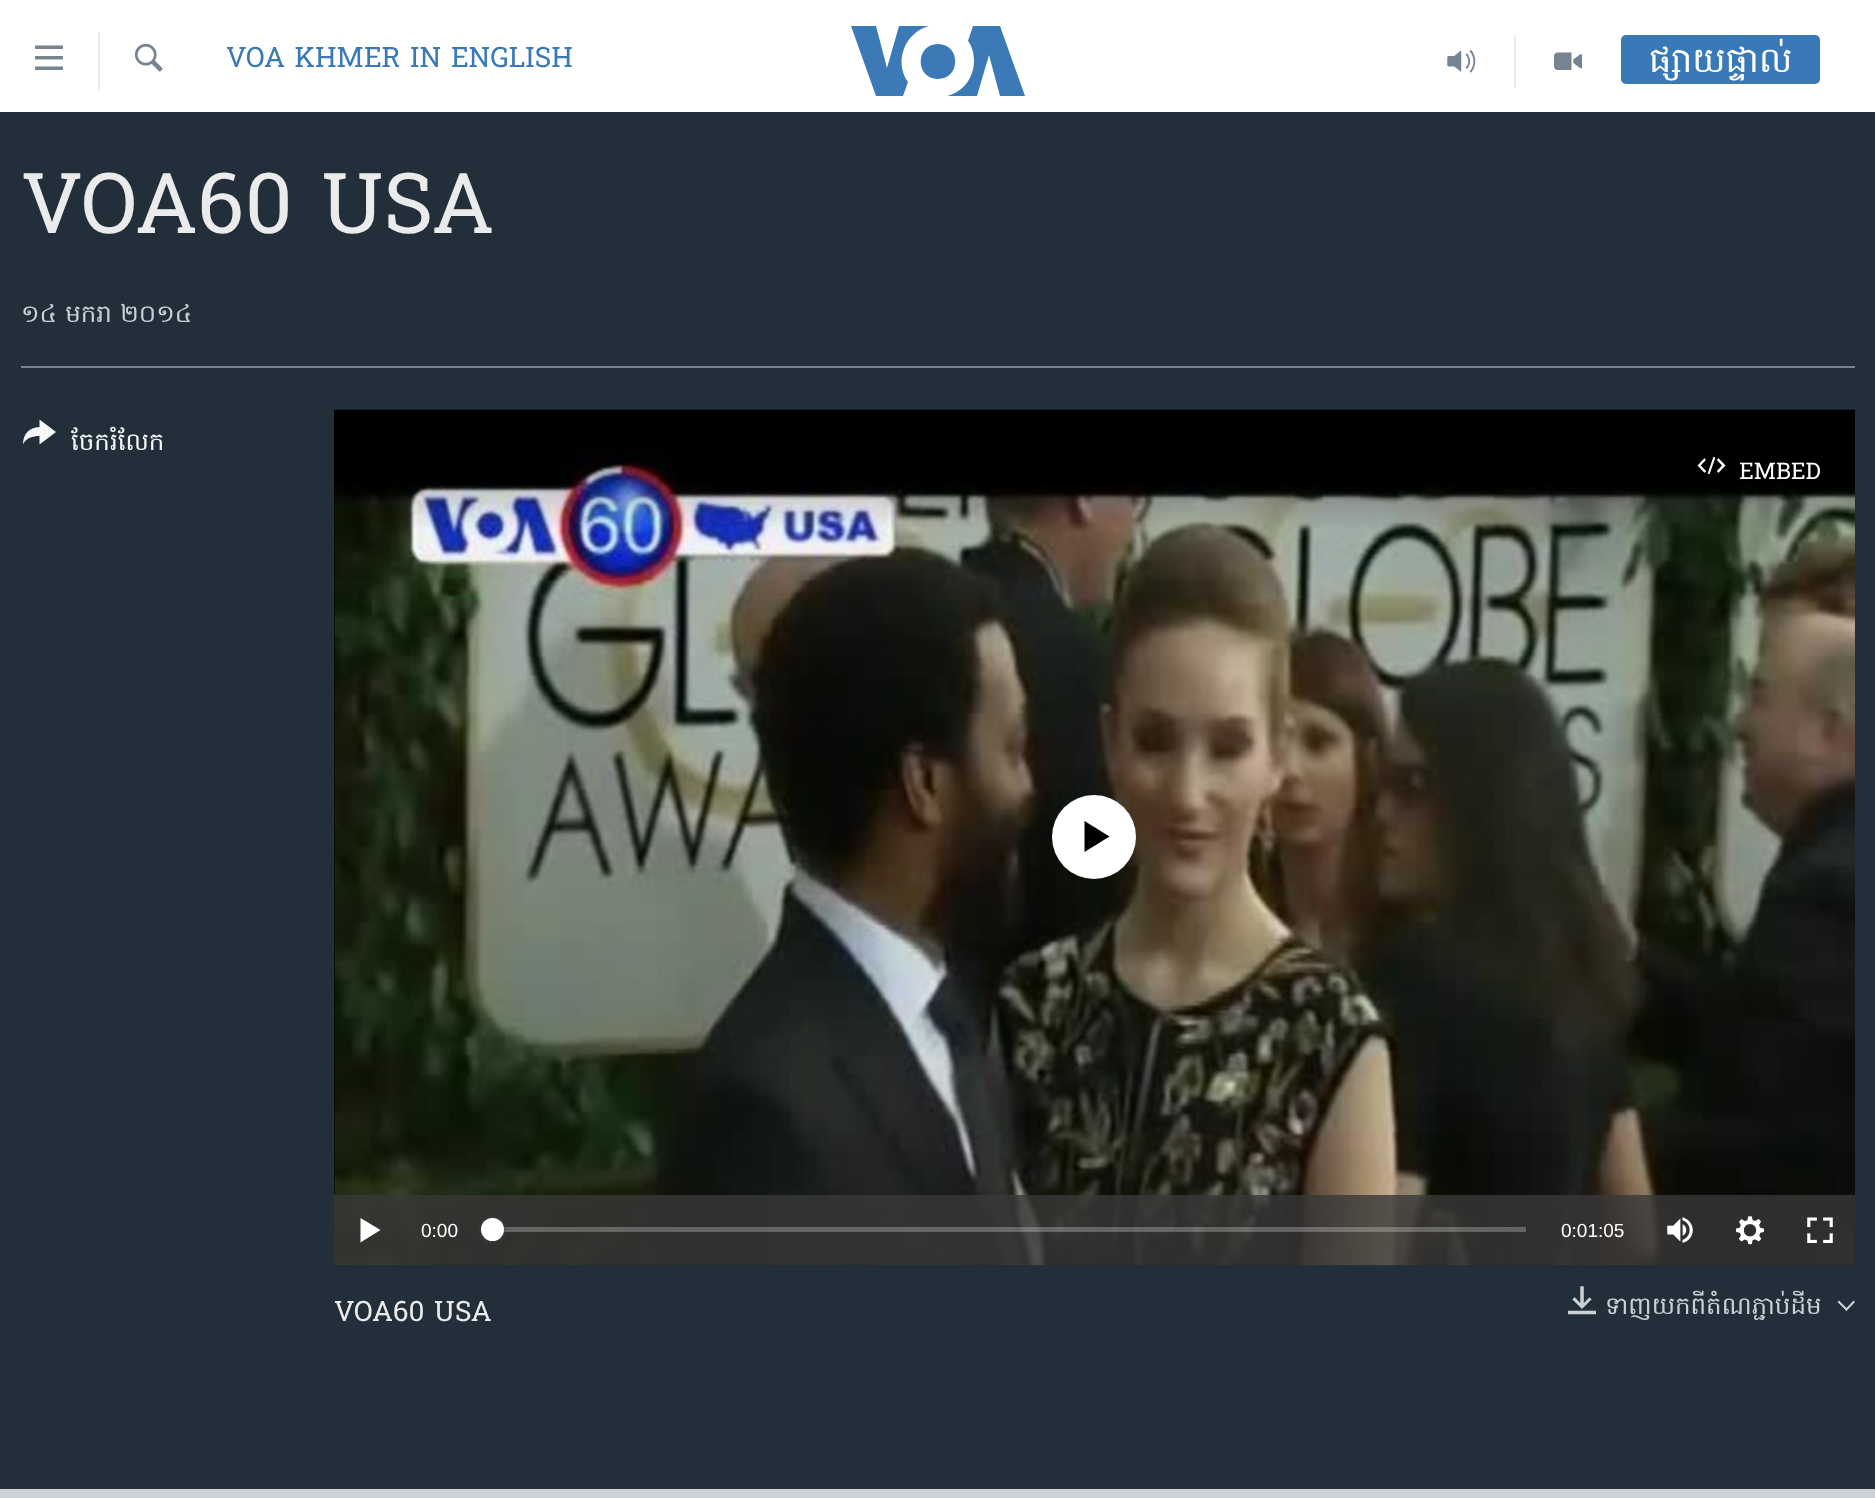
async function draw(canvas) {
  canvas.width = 1875
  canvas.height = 1498
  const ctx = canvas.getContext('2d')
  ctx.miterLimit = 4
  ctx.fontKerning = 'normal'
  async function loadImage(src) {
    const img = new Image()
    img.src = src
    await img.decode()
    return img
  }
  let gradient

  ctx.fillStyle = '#fff'
  ctx.fillRect(0, 0, 1875, 1498)
  ctx.drawImage(await loadImage('image0.png'), 35, 45, 28, 25)
  ctx.fillStyle = '#ebebeb'
  ctx.fillRect(98, 32, 2, 59)
  ctx.drawImage(await loadImage('image1.png'), 134, 43, 29, 29)
  ctx.font = '28px Hanuman'
  ctx.fillStyle = '#3a79b7'
  ctx.fillText('VOA KHMER IN ENGLISH', 226, 67)
  ctx.fillStyle = '#3b79b7'
  ctx.beginPath()
  ctx.moveTo(908, 82)
  ctx.lineTo(903, 96)
  ctx.lineTo(876, 96)
  ctx.lineTo(851, 26)
  ctx.lineTo(876, 26)
  ctx.lineTo(887, 68)
  ctx.lineTo(899, 26)
  ctx.lineTo(929, 26)
  ctx.bezierCurveTo(904, 33, 894, 62, 908, 82)
  ctx.closePath()
  ctx.moveTo(938, 44)
  ctx.bezierCurveTo(915, 44, 915, 79, 938, 79)
  ctx.bezierCurveTo(961, 79, 961, 44, 938, 44)
  ctx.closePath()
  ctx.moveTo(974, 61)
  ctx.bezierCurveTo(974, 78, 963, 92, 947, 96)
  ctx.lineTo(977, 96)
  ctx.lineTo(989, 55)
  ctx.lineTo(1000, 96)
  ctx.lineTo(1025, 96)
  ctx.lineTo(1000, 26)
  ctx.lineTo(973, 26)
  ctx.lineTo(968, 41)
  ctx.bezierCurveTo(972, 46, 974, 54, 974, 61)
  ctx.closePath()
  ctx.fill()
  ctx.fillStyle = '#ebebeb'
  ctx.fillRect(1514, 35, 2, 53)
  ctx.drawImage(await loadImage('image2.png'), 1447, 50, 29, 23)
  ctx.drawImage(await loadImage('image3.png'), 1554, 52, 28, 18)
  ctx.fillStyle = '#3a79b7'
  ctx.beginPath()
  ctx.roundRect(1621, 35, 199, 49, 5)
  ctx.fill()
  ctx.font = '35px Hanuman'
  ctx.fillStyle = '#fff'
  ctx.fillText('ផ្សាយផ្ទាល់', 1649, 72)
  ctx.fillStyle = '#222f3a'
  ctx.fillRect(0, 112, 1875, 1377)
  ctx.fillStyle = '#cbd1d6'
  ctx.fillRect(0, 1489, 1875, 9)
  ctx.font = '84px Hanuman'
  ctx.fillStyle = '#ebebeb'
  ctx.fillText('VOA60 USA', 21, 233)
  ctx.font = '24.5px Hanuman'
  ctx.fillStyle = '#cbd1d6'
  ctx.fillText('១៤ មករា ២០១៤', 21, 322)
  ctx.fillStyle = '#768492'
  ctx.fillRect(21, 366, 1834, 2)
  ctx.fillStyle = '#f6f7f8'
  ctx.beginPath()
  ctx.moveTo(23, 444.5)
  ctx.bezierCurveTo(23, 434, 29, 427.5, 39.5, 427)
  ctx.lineTo(39.5, 419.5)
  ctx.lineTo(56, 432)
  ctx.lineTo(39.5, 444.5)
  ctx.lineTo(39.5, 436)
  ctx.bezierCurveTo(33, 436, 25.5, 438, 23, 444.5)
  ctx.closePath()
  ctx.fill()
  ctx.fillText('ចែករំលែក', 71, 450)
  ctx.fillStyle = '#000'
  ctx.fillRect(334, 410, 1, 855)
  ctx.drawImage(await loadImage('image4.png'), 334, 409, 1521, 857)
  gradient = ctx.createLinearGradient(1095, 409, 1095, 532)
  gradient.addColorStop(0, '#00000080')
  gradient.addColorStop(1, '#00000000')
  ctx.fillStyle = gradient
  ctx.fillRect(364, 446, 1491, 81)
  ctx.drawImage(await loadImage('image5.png'), 1697, 456, 29, 19)
  ctx.font = '23px Hanuman'
  ctx.fillStyle = '#fff'
  ctx.fillText('EMBED', 1739, 479)
  ctx.beginPath()
  ctx.arc(1094, 837, 42, 0, 2 * Math.PI)
  ctx.fill()
  ctx.fillStyle = '#000'
  ctx.beginPath()
  ctx.moveTo(1084.5, 852)
  ctx.lineTo(1109.5, 836.5)
  ctx.lineTo(1084.5, 821)
  ctx.closePath()
  ctx.fill()
  ctx.fillStyle = '#383838cc'
  ctx.fillRect(334, 1195, 1521, 70)
  ctx.fillStyle = '#fff'
  ctx.beginPath()
  ctx.moveTo(360.5, 1242.5)
  ctx.lineTo(380.5, 1230)
  ctx.lineTo(360.5, 1218)
  ctx.closePath()
  ctx.fill()
  ctx.font = '19px Liberation Sans'
  ctx.fillText('0:00', 421, 1237)
  ctx.fillStyle = '#ffffff40'
  ctx.fillRect(503, 1227, 1023, 5)
  ctx.fillStyle = '#414144'
  ctx.filter = 'blur(2.5px)'
  ctx.beginPath()
  ctx.roundRect(481, 1218, 23, 23, 11.5)
  ctx.fill()
  ctx.filter = 'none'
  ctx.fillStyle = '#fff'
  ctx.beginPath()
  ctx.arc(492.5, 1229.5, 11.5, 0, 2 * Math.PI)
  ctx.fill()
  ctx.fillText('0:01:05', 1561, 1237)
  ctx.drawImage(await loadImage('image6.png'), 1667, 1217, 26, 26)
  ctx.drawImage(await loadImage('image7.png'), 1736, 1216, 28, 29)
  ctx.drawImage(await loadImage('image8.png'), 1807, 1217, 26, 26)
  ctx.font = '28px Hanuman'
  ctx.fillStyle = '#ebebeb'
  ctx.fillText('VOA60 USA', 334, 1321)
  ctx.drawImage(await loadImage('image9.png'), 1568, 1286, 28, 29)
  ctx.font = '24.5px Hanuman'
  ctx.fillStyle = '#cbd1d6'
  ctx.fillText('ទាញយកពីតំណភ្ជាប់ដើម', 1605, 1314)
  ctx.beginPath()
  ctx.moveTo(1837.5, 1302)
  ctx.lineTo(1846.5, 1311)
  ctx.lineTo(1855, 1302)
  ctx.lineTo(1853.5, 1300.5)
  ctx.lineTo(1846.5, 1308)
  ctx.lineTo(1839, 1300.5)
  ctx.closePath()
  ctx.fill()
}

draw(document.querySelector('canvas'))
